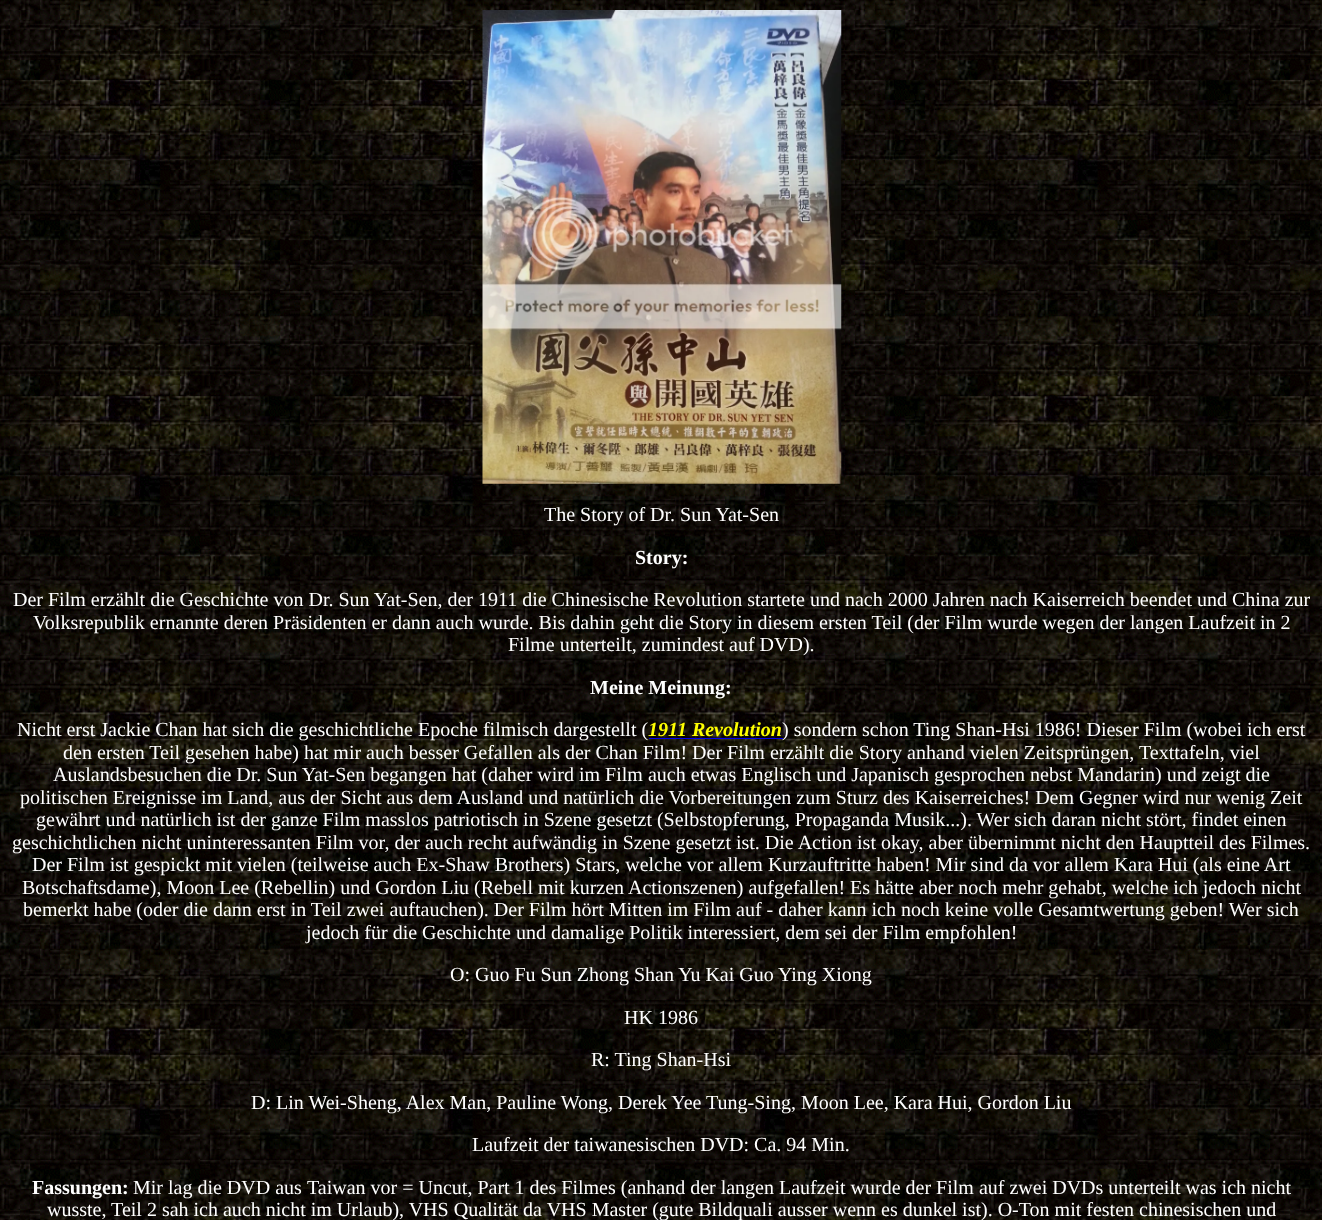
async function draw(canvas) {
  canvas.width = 1322
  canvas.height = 1220
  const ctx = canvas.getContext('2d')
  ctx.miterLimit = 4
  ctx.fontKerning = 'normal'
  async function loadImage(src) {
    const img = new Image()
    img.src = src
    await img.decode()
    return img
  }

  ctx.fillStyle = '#fff'
  ctx.fillRect(0, 0, 1322, 1220)
  ctx.drawImage(await loadImage('image0.png'), 0, 0, 1322, 1220)
  ctx.drawImage(await loadImage('image1.png'), 482, 10, 360, 474)
  ctx.font = '20px Liberation Serif'
  ctx.fillText('The Story of Dr. Sun Yat-Sen', 544, 521)
  ctx.font = 'bold 20px Liberation Serif'
  ctx.fillText('Story:', 635, 564)
  ctx.font = '20px Liberation Serif'
  ctx.fillText('Der Film erzählt die Geschichte von Dr. Sun Yat-Sen, der 1911 die Chinesische Revolution startete und nach 2000 Jahren nach Kaiserreich beendet und China zur', 13, 606)
  ctx.fillText('Volksrepublik ernannte deren Präsidenten er dann auch wurde. Bis dahin geht die Story in diesem ersten Teil (der Film wurde wegen der langen Laufzeit in 2', 33, 629)
  ctx.fillText('Filme unterteilt, zumindest auf DVD).', 508, 651)
  ctx.font = 'bold 20px Liberation Serif'
  ctx.fillText('Meine Meinung:', 590, 694)
  ctx.font = '20px Liberation Serif'
  ctx.fillText('Nicht erst Jackie Chan hat sich die geschichtliche Epoche filmisch dargestellt (', 17, 736)
  ctx.font = 'italic bold 20px Liberation Serif'
  ctx.fillStyle = '#ff0'
  ctx.fillText('1911 Revolution', 648, 736)
  ctx.fillStyle = '#00e'
  ctx.fillRect(649, 738, 134, 1)
  ctx.font = '20px Liberation Serif'
  ctx.fillStyle = '#fff'
  ctx.fillText(') sondern schon Ting Shan-Hsi 1986! Dieser Film (wobei ich erst', 782, 736)
  ctx.fillText('den ersten Teil gesehen habe) hat mir auch besser Gefallen als der Chan Film! Der Film erzählt die Story anhand vielen Zeitsprüngen,', 63, 759)
  ctx.fillText('Texttafeln, viel', 1139, 759)
  ctx.fillText('Auslandsbesuchen die Dr. Sun Yat-Sen begangen hat (daher wird im Film auch etwas Englisch und Japanisch gesprochen nebst Mandarin) und zeigt die', 53, 781)
  ctx.fillText('politischen Ereignisse im Land, aus der Sicht aus dem Ausland und natürlich die Vorbereitungen zum Sturz des Kaiserreiches! Dem Gegner wird nur wenig Zeit', 20, 804)
  ctx.fillText('gewährt und natürlich ist der ganze Film masslos patriotisch in Szene gesetzt (Selbstopferung, Propaganda Musik...). Wer sich daran nicht stört, findet einen', 36, 826)
  ctx.fillText('geschichtlichen nicht uninteressanten Film vor, der auch recht aufwändig in Szene gesetzt ist. Die Action ist okay, aber übernimmt nicht den Hauptteil des Filmes.', 12, 849)
  ctx.fillText('Der Film ist gespickt mit vielen (teilweise auch Ex-Shaw Brothers) Stars, welche vor allem Kurzauftritte haben! Mir sind da vor allem Kara Hui (als eine Art', 32, 871)
  ctx.fillText('Botschaftsdame), Moon Lee (Rebellin) und Gordon Liu (Rebell mit kurzen Actionszenen) aufgefallen! Es hätte aber noch mehr gehabt, welche ich jedoch nicht', 22, 894)
  ctx.fillText('bemerkt habe (oder die dann erst in Teil zwei auftauchen). Der Film hört Mitten im Film auf - daher kann ich noch keine volle Gesamtwertung geben! Wer sich', 23, 916)
  ctx.fillText('jedoch für die Geschichte und damalige Politik interessiert, dem sei der Film empfohlen!', 306, 939)
  ctx.fillText('O: Guo Fu Sun Zhong Shan Yu Kai Guo Ying Xiong', 450, 981)
  ctx.fillText('HK 1986', 624, 1024)
  ctx.fillText('R: Ting Shan-Hsi', 591, 1066)
  ctx.fillText('D: Lin Wei-Sheng, Alex Man, Pauline Wong, Derek Yee Tung-Sing, Moon Lee, Kara Hui, Gordon Liu', 251, 1109)
  ctx.fillText('Laufzeit der taiwanesischen DVD: Ca. 94 Min.', 472, 1151)
  ctx.font = 'bold 20px Liberation Serif'
  ctx.fillText('Fassungen:', 32, 1194)
  ctx.font = '20px Liberation Serif'
  ctx.fillText('Mir lag die DVD aus', 133, 1194)
  ctx.fillText('Taiwan vor = Uncut, Part 1 des Filmes (anhand der langen Laufzeit wurde der Film auf zwei DVDs unterteilt was ich nicht', 307, 1194)
  ctx.fillText('wusste, Teil 2 sah ich auch nicht im Urlaub), VHS Qualität da VHS Master (gute Bildquali ausser wenn es dunkel ist). O-Ton mit festen chinesischen und', 47, 1216)
}

draw(document.querySelector('canvas'))
